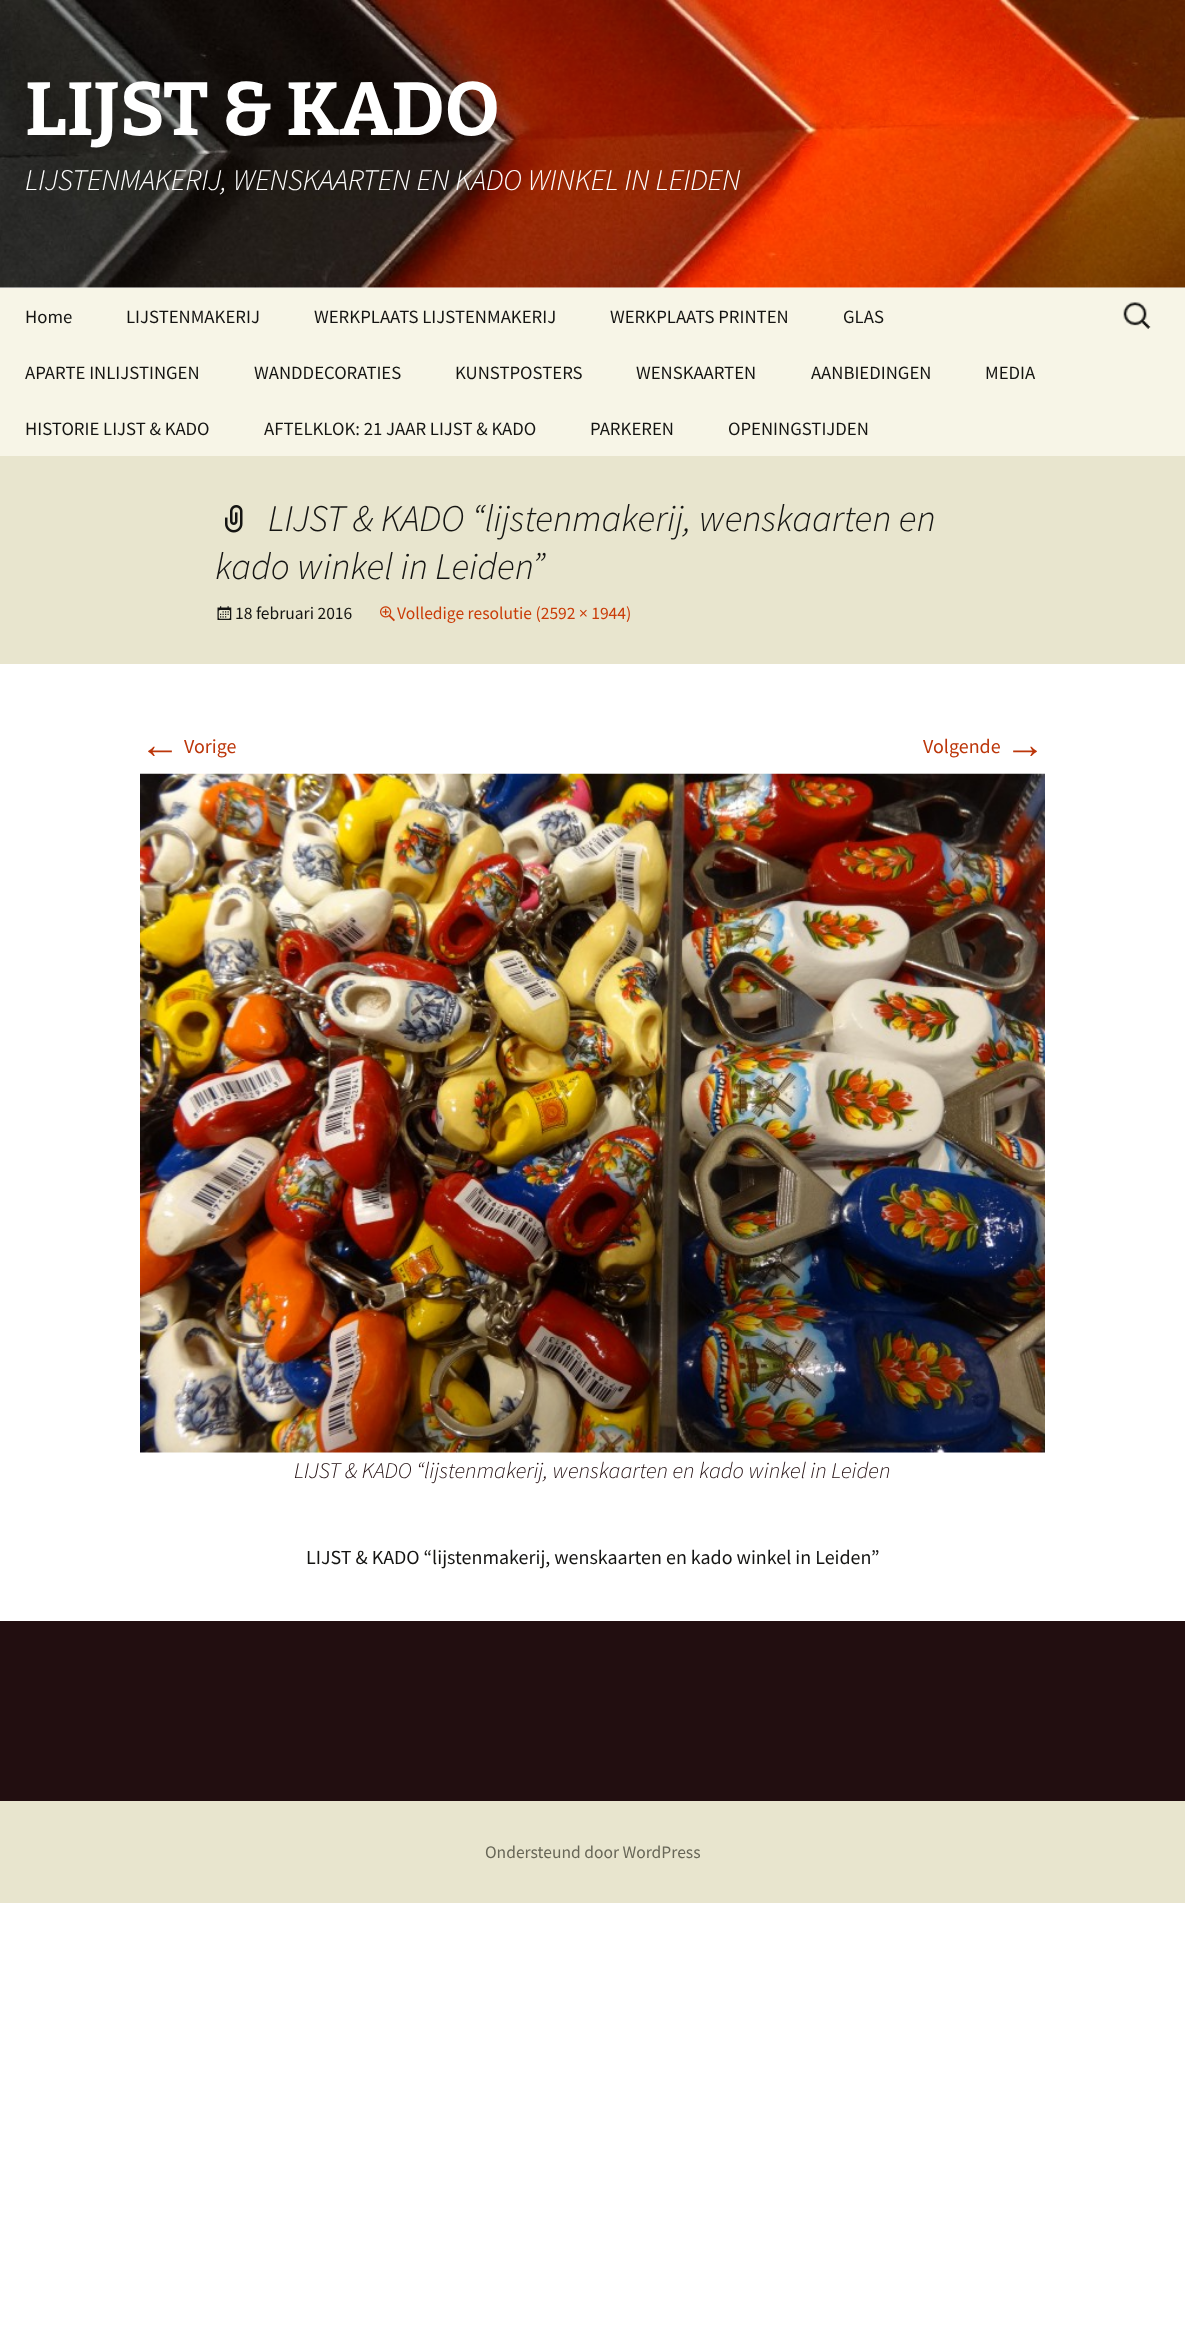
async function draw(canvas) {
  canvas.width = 1185
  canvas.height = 2325
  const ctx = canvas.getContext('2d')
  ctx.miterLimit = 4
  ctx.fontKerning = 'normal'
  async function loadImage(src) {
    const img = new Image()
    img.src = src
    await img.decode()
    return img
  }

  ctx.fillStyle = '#fff'
  ctx.fillRect(0, 0, 1185, 2325)
  ctx.drawImage(await loadImage('image0.png'), 0, 0, 1185, 288)
  ctx.font = '100 75px Bitter'
  ctx.fillText('LIJST & KADO', 25, 135)
  ctx.font = 'italic 300 30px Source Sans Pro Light'
  ctx.fillText('LIJSTENMAKERIJ, WENSKAARTEN EN KADO WINKEL IN LEIDEN', 25, 190)
  ctx.fillStyle = '#f7f5e7'
  ctx.fillRect(0, 288, 1185, 168)
  ctx.font = '18.75px Source Sans Pro'
  ctx.fillStyle = '#141412'
  ctx.fillText('Home', 25, 323)
  ctx.fillText('LIJSTENMAKERIJ', 126, 323)
  ctx.fillText('WERKPLAATS LIJSTENMAKERIJ', 314, 323)
  ctx.fillText('WERKPLAATS PRINTEN', 610, 323)
  ctx.fillText('GLAS', 843, 323)
  ctx.fillText('APARTE INLIJSTINGEN', 25, 379)
  ctx.fillText('WANDDECORATIES', 254, 379)
  ctx.fillText('KUNSTPOSTERS', 455, 379)
  ctx.fillText('WENSKAARTEN', 636, 379)
  ctx.fillText('AANBIEDINGEN', 811, 379)
  ctx.fillText('MEDIA', 985, 379)
  ctx.fillText('HISTORIE LIJST & KADO', 25, 435)
  ctx.fillText('AFTELKLOK: 21 JAAR LIJST & KADO', 264, 435)
  ctx.fillText('PARKEREN', 590, 435)
  ctx.fillText('OPENINGSTIJDEN', 728, 435)
  ctx.drawImage(await loadImage('image1.png'), 1123, 302, 28, 27)
  ctx.fillStyle = '#e8e5ce'
  ctx.fillRect(0, 456, 1185, 208)
  ctx.drawImage(await loadImage('image2.png'), 225, 505, 18, 28)
  ctx.font = 'italic 300 37.5px Source Sans Pro Light'
  ctx.fillStyle = '#141412'
  ctx.fillText('LIJST & KADO “lijstenmakerij, wenskaarten en', 268, 531)
  ctx.fillText('kado winkel in Leiden”', 215, 579)
  ctx.drawImage(await loadImage('image3.png'), 217, 606, 15, 14)
  ctx.font = '17.5px Source Sans Pro'
  ctx.fillText('18 februari 2016', 235, 619)
  ctx.drawImage(await loadImage('image4.png'), 380, 606, 15, 16)
  ctx.fillStyle = '#ca3c08'
  ctx.fillText('Volledige resolutie (2592 × 1944)', 397, 619)
  ctx.font = '40px Liberation Sans'
  ctx.fillStyle = '#bc360a'
  ctx.fillText('←', 140, 758)
  ctx.font = '20px Source Sans Pro'
  ctx.fillText('Vorige', 184, 753)
  ctx.fillText('Volgende', 923, 753)
  ctx.font = '40px Liberation Sans'
  ctx.fillText('→', 1005, 758)
  ctx.drawImage(await loadImage('image5.png'), 140, 773, 905, 680)
  ctx.font = 'italic 300 22.5px Source Sans Pro Light'
  ctx.fillStyle = '#220e10'
  ctx.fillText('LIJST & KADO “lijstenmakerij, wenskaarten en kado winkel in Leiden', 294, 1478)
  ctx.font = '20px Source Sans Pro'
  ctx.fillStyle = '#141412'
  ctx.fillText('LIJST & KADO “lijstenmakerij, wenskaarten en kado winkel in Leiden”', 306, 1564)
  ctx.fillStyle = '#e8e5ce'
  ctx.fillRect(0, 1801, 1185, 102)
  ctx.fillStyle = '#220e10'
  ctx.fillRect(0, 1621, 1185, 180)
  ctx.font = '17.5px Source Sans Pro'
  ctx.fillStyle = '#686758'
  ctx.fillText('Ondersteund door WordPress', 485, 1858)
}

draw(document.querySelector('canvas'))
